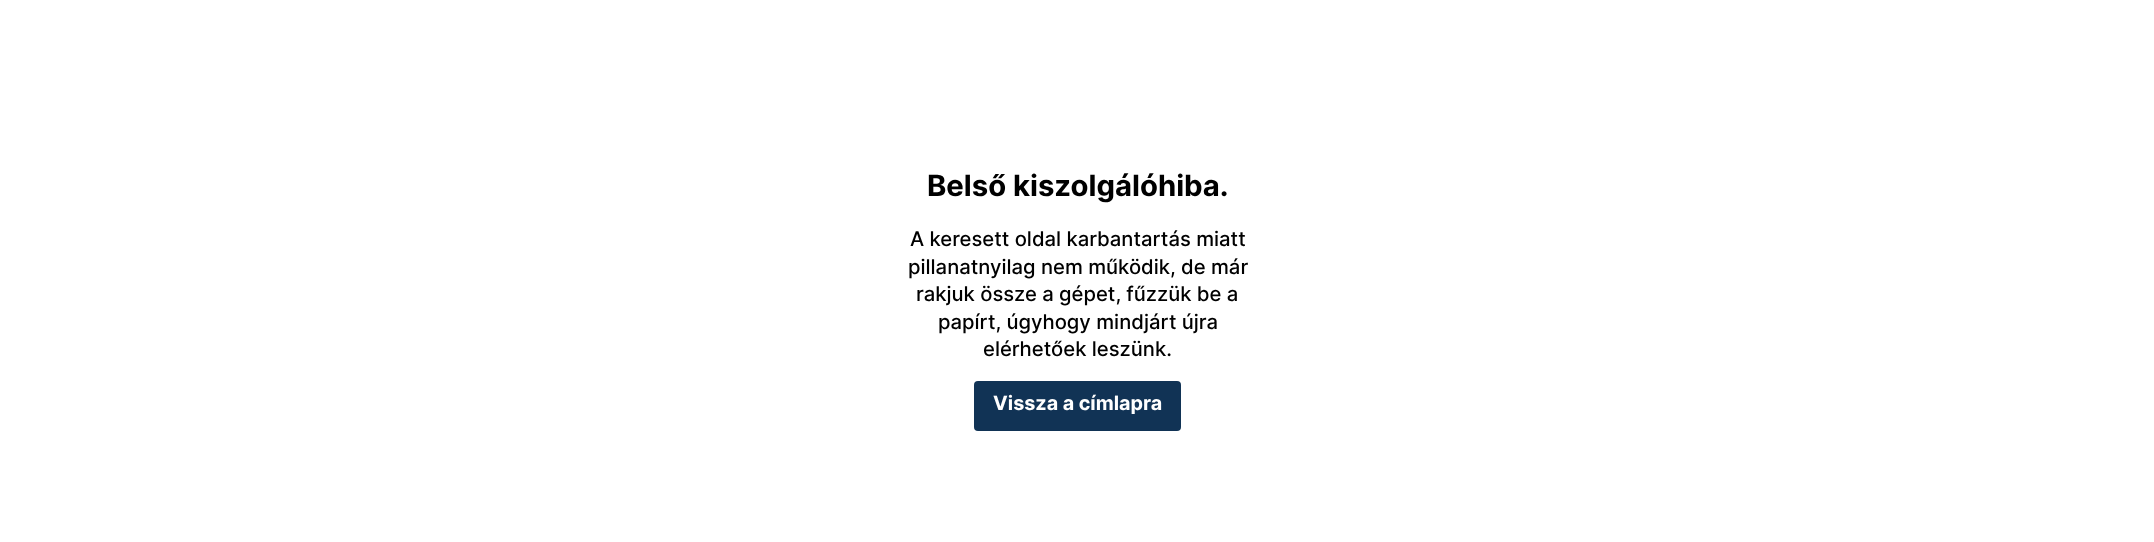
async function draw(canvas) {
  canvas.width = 2154
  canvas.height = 542
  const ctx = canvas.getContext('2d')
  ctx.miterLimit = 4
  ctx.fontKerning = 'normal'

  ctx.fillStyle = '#fff'
  ctx.fillRect(0, 0, 2154, 542)
  ctx.font = 'bold 29.25px Inter'
  ctx.fillStyle = '#000'
  ctx.fillText('Belső kiszolgálóhiba.', 927, 196)
  ctx.font = '500 20.25px Inter'
  ctx.fillText('A keresett oldal karbantartás miatt', 910, 246)
  ctx.fillText('pillanatnyilag nem működik, de már', 908, 274)
  ctx.fillText('rakjuk össze a gépet, fűzzük be a', 916, 301)
  ctx.fillText('papírt, úgyhogy mindjárt újra', 938, 329)
  ctx.fillText('elérhetőek leszünk.', 983, 356)
  ctx.fillStyle = '#135'
  ctx.beginPath()
  ctx.roundRect(974, 381, 207, 50, 4)
  ctx.fill()
  ctx.font = 'bold 19.75px Inter'
  ctx.fillStyle = '#fff'
  ctx.fillText('Vissza a címlapra', 993, 410)
}

draw(document.querySelector('canvas'))
